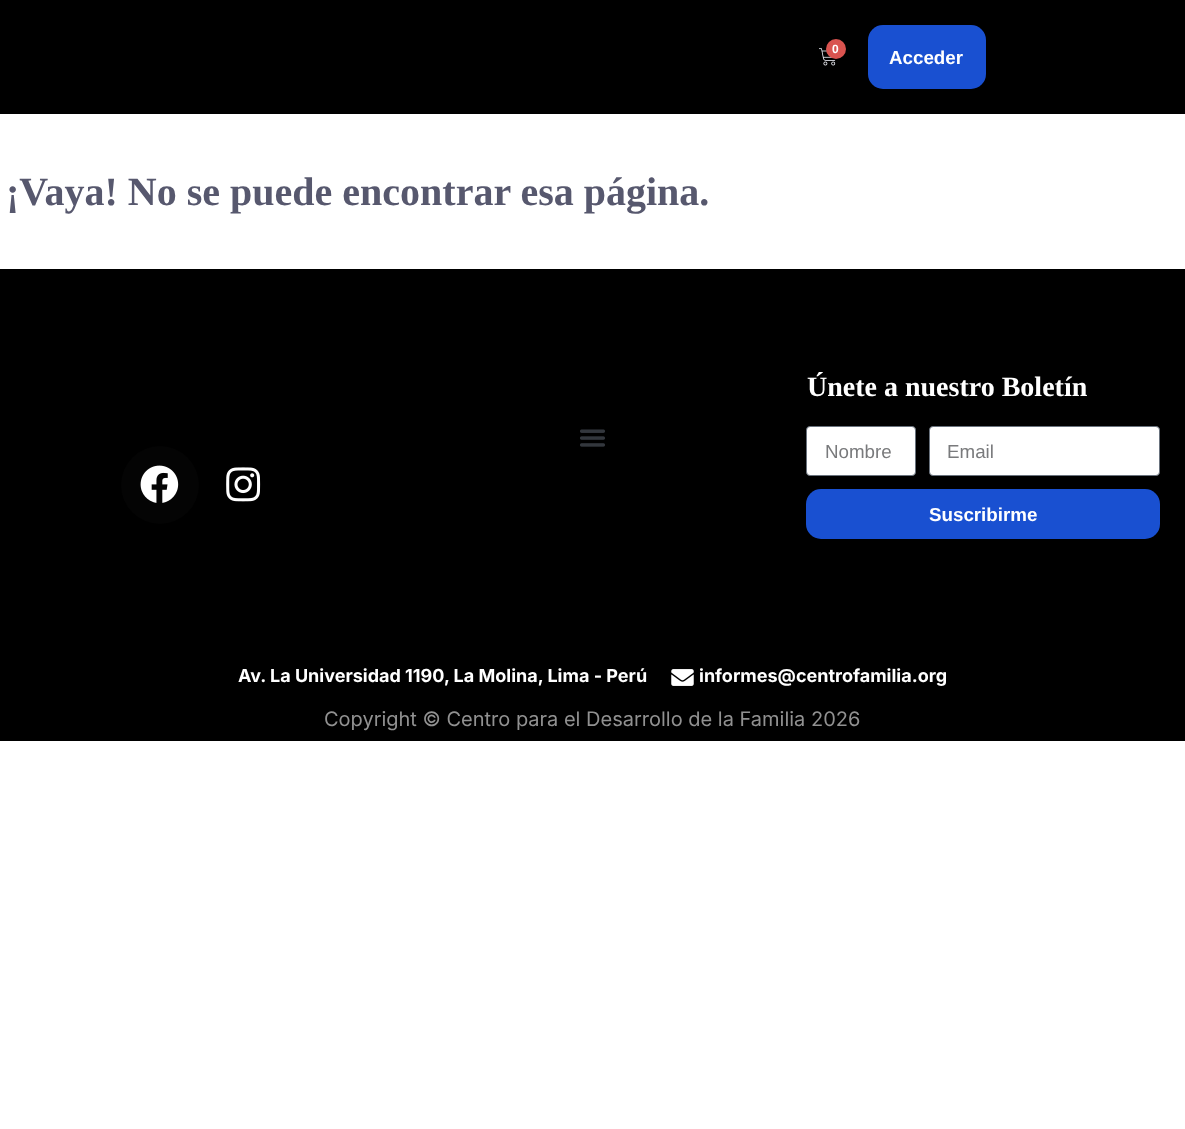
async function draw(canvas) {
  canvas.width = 1185
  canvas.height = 1129
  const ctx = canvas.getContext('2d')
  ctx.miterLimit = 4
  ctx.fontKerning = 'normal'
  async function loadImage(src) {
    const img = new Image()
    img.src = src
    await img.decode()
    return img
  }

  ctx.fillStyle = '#fff'
  ctx.fillRect(0, 0, 1185, 1129)
  ctx.fillStyle = '#000'
  ctx.fillRect(0, 0, 1185, 114)
  ctx.drawImage(await loadImage('image0.png'), 819, 48, 17, 18)
  ctx.fillStyle = '#d9534f'
  ctx.beginPath()
  ctx.arc(836, 49, 10, 0, 2 * Math.PI)
  ctx.fill()
  ctx.font = 'bold 12px Liberation Sans'
  ctx.fillStyle = '#fff'
  ctx.fillText('0', 832, 53)
  ctx.fillStyle = '#1950d1'
  ctx.beginPath()
  ctx.roundRect(868, 25, 118, 64, 15)
  ctx.fill()
  ctx.font = 'bold 18.75px Liberation Sans'
  ctx.fillStyle = '#fff'
  ctx.fillText('Acceder', 889, 64)
  ctx.font = 'bold 40px Liberation Serif'
  ctx.fillStyle = '#57586e'
  ctx.fillText('¡Vaya! No se puede encontrar esa página.', 6, 205)
  ctx.fillStyle = '#000'
  ctx.fillRect(0, 269, 1185, 472)
  ctx.drawImage(await loadImage('image1.png'), 580, 429, 25, 18)
  ctx.font = 'bold 28px Liberation Serif'
  ctx.fillStyle = '#fff'
  ctx.fillText('Únete a nuestro Boletín', 807, 396)
  ctx.beginPath()
  ctx.roundRect(806.5, 426.5, 109, 49, 3.5)
  ctx.fill()
  ctx.strokeStyle = '#69727d'
  ctx.stroke()
  ctx.font = '18.75px Liberation Sans'
  ctx.fillStyle = '#797a7c'
  ctx.fillText('Nombre', 825, 458)
  ctx.fillStyle = '#fff'
  ctx.beginPath()
  ctx.roundRect(929.5, 426.5, 230, 49, 3.5)
  ctx.fill()
  ctx.stroke()
  ctx.fillStyle = '#797a7c'
  ctx.fillText('Email', 947, 458)
  ctx.fillStyle = '#1950d1'
  ctx.beginPath()
  ctx.roundRect(806, 489, 354, 50, 15)
  ctx.fill()
  ctx.font = 'bold 18.75px Liberation Sans'
  ctx.fillStyle = '#fff'
  ctx.fillText('Suscribirme', 929, 521)
  ctx.fillStyle = '#040404'
  ctx.beginPath()
  ctx.arc(160, 485, 39, 0, 2 * Math.PI)
  ctx.fill()
  ctx.drawImage(await loadImage('image2.png'), 140, 465, 39, 38)
  ctx.drawImage(await loadImage('image3.png'), 226, 467, 35, 35)
  ctx.font = 'bold 18px Inter'
  ctx.fillStyle = '#fff'
  ctx.fillText('Av. La Universidad 1190, La Molina, Lima - Perú', 238, 682)
  ctx.drawImage(await loadImage('image4.png'), 671, 669, 23, 17)
  ctx.fillText('informes@centrofamilia.org', 699, 682)
  ctx.font = '20px Inter'
  ctx.fillStyle = '#919191'
  ctx.fillText('Copyright © Centro para el Desarrollo de la Familia 2026', 324, 726)
}

draw(document.querySelector('canvas'))
